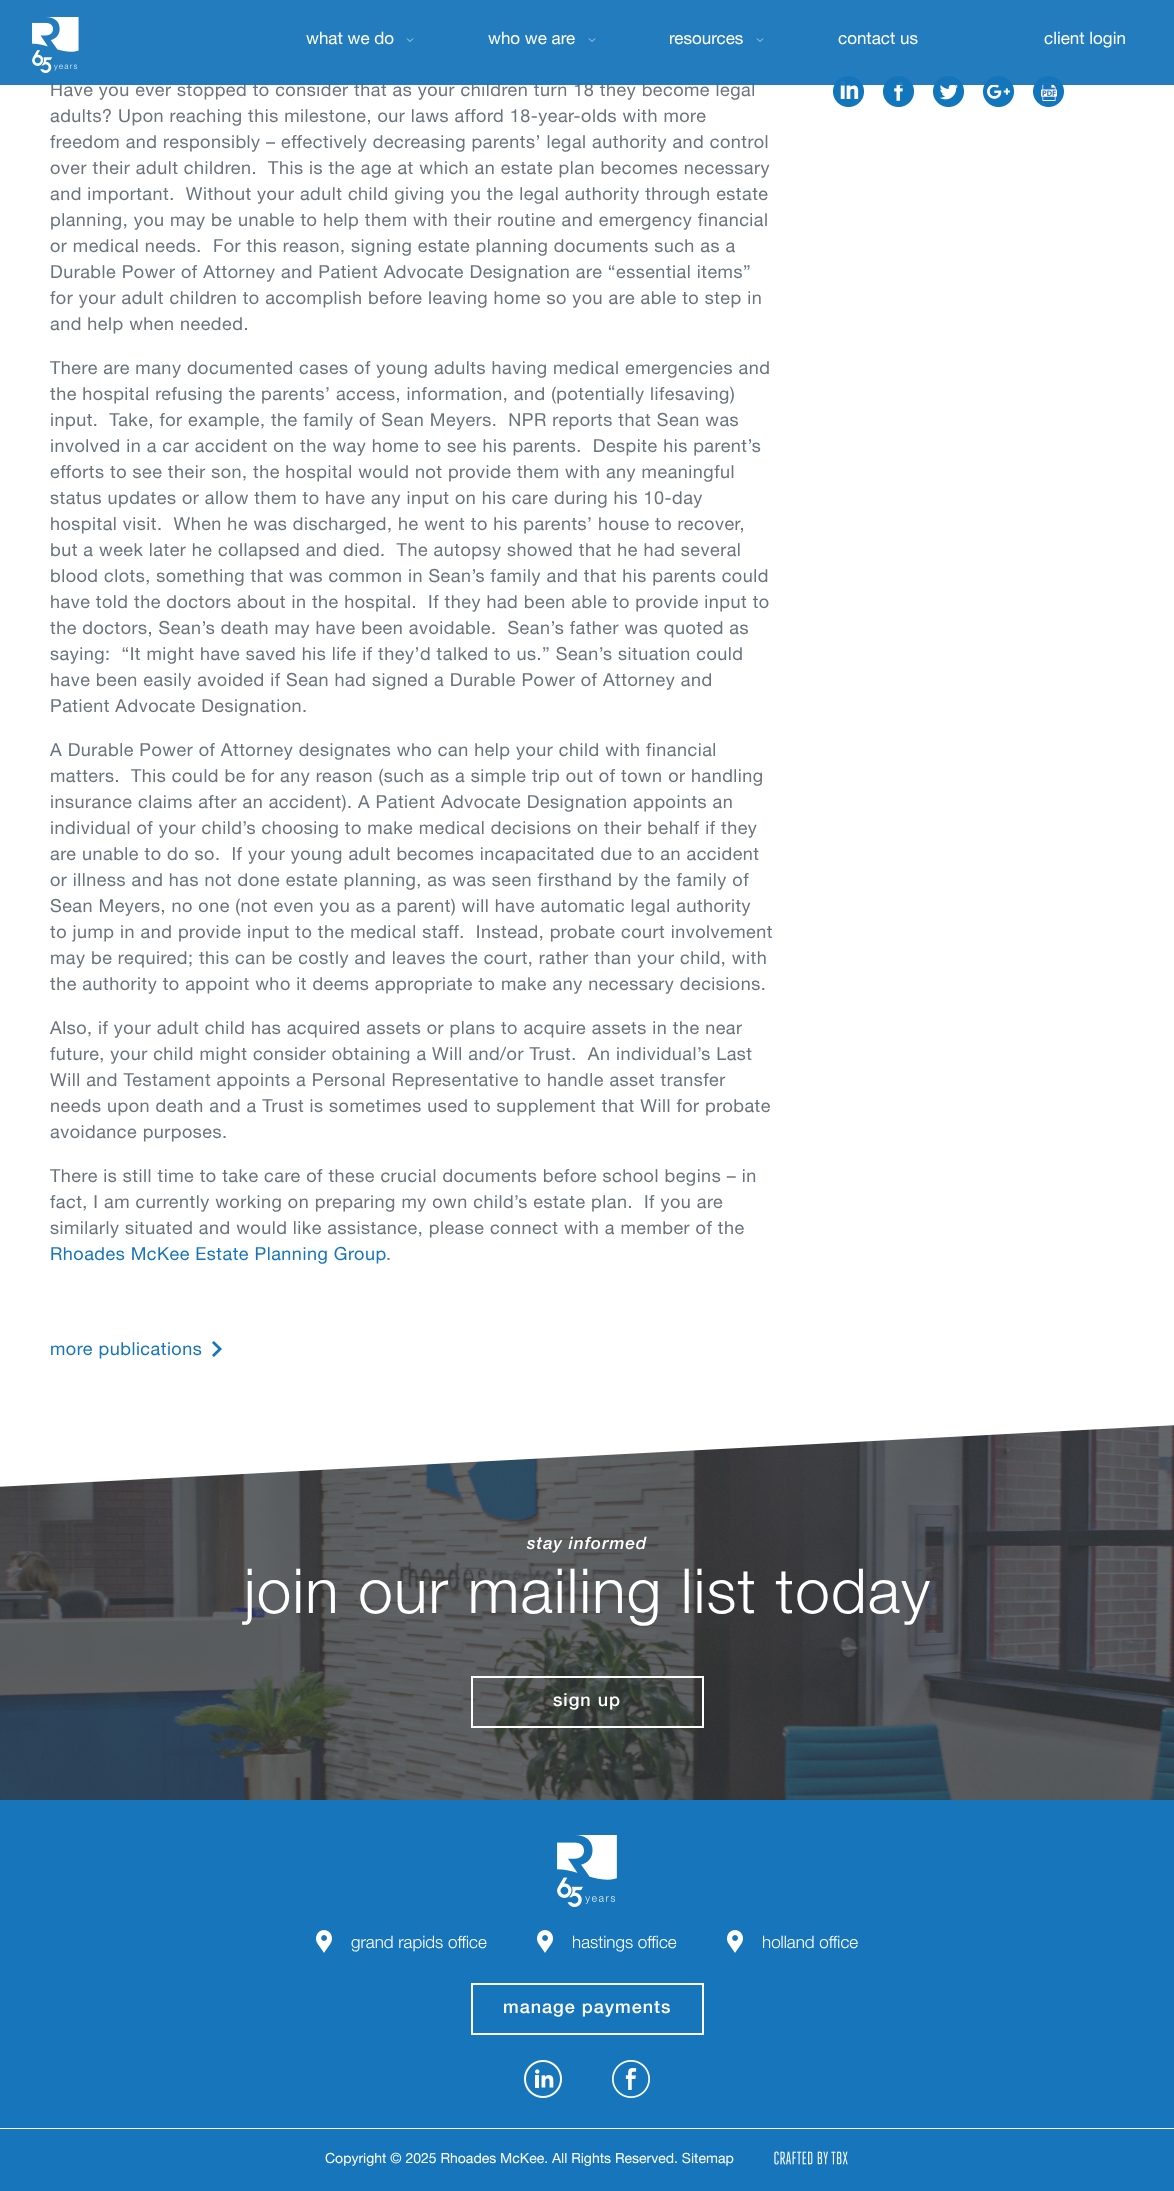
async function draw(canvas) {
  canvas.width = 1174
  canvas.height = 2191
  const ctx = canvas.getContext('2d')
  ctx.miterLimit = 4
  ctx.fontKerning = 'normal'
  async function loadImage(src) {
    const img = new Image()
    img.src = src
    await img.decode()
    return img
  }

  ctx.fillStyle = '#fff'
  ctx.fillRect(0, 0, 1174, 2191)
  ctx.letterSpacing = '0.5px'
  ctx.font = '18px Helvetica Neue'
  ctx.fillStyle = '#6a747c'
  ctx.fillText('Have you ever stopped to consider that as your children turn 18 they become legal', 50, 96)
  ctx.drawImage(await loadImage('image2.png'), 833, 76, 31, 31)
  ctx.drawImage(await loadImage('image3.png'), 883, 76, 31, 31)
  ctx.drawImage(await loadImage('image4.png'), 933, 76, 31, 31)
  ctx.drawImage(await loadImage('image5.png'), 983, 76, 31, 31)
  ctx.drawImage(await loadImage('image6.png'), 1033, 76, 31, 31)
  ctx.fillStyle = '#1675bbf2'
  ctx.fillRect(0, 0, 1174, 85)
  ctx.drawImage(await loadImage('image0.png'), 32, 17, 47, 56)
  ctx.letterSpacing = '0px'
  ctx.font = '17px Helvetica Neue'
  ctx.fillStyle = '#fff'
  ctx.fillText('what we do', 306, 44)
  ctx.beginPath()
  ctx.moveTo(413, 38.5)
  ctx.lineTo(410, 41.5)
  ctx.lineTo(407, 38.5)
  ctx.strokeStyle = '#fff'
  ctx.lineWidth = 0.7
  ctx.stroke()
  ctx.fillText('who we are', 488, 44)
  ctx.beginPath()
  ctx.moveTo(595, 38.5)
  ctx.lineTo(592, 41.5)
  ctx.lineTo(589, 38.5)
  ctx.stroke()
  ctx.fillText('resources', 669, 44)
  ctx.beginPath()
  ctx.moveTo(763, 38.5)
  ctx.lineTo(760, 41.5)
  ctx.lineTo(757, 38.5)
  ctx.stroke()
  ctx.fillText('contact us', 838, 44)
  ctx.fillText('client login', 1044, 44)
  ctx.letterSpacing = '0.5px'
  ctx.font = '18px Helvetica Neue'
  ctx.fillStyle = '#6a747c'
  ctx.fillText('adults? Upon reaching this milestone, our laws afford 18-year-olds with more', 50, 122)
  ctx.fillText('freedom and responsibly – effectively decreasing parents’ legal authority and control', 50, 148)
  ctx.fillText('over their adult children.  This is the age at which an estate plan becomes necessary', 50, 174)
  ctx.fillText('and important.  Without your adult child giving you the legal authority through estate', 50, 200)
  ctx.fillText('planning, you may be unable to help them with their routine and emergency financial', 50, 226)
  ctx.fillText('or medical needs.  For this reason, signing estate planning documents such as a', 50, 252)
  ctx.fillText('Durable Power of Attorney and Patient Advocate Designation are “essential items”', 50, 278)
  ctx.fillText('for your adult children to accomplish before leaving home so you are able to step in', 50, 304)
  ctx.fillText('and help when needed.', 50, 330)
  ctx.fillText('There are many documented cases of young adults having medical emergencies and', 50, 374)
  ctx.fillText('the hospital refusing the parents’ access, information, and (potentially lifesaving)', 50, 400)
  ctx.fillText('input.  Take, for example, the family of Sean Meyers.  NPR reports that Sean was', 50, 426)
  ctx.fillText('involved in a car accident on the way home to see his parents.  Despite his parent’s', 50, 452)
  ctx.fillText('efforts to see their son, the hospital would not provide them with any meaningful', 50, 478)
  ctx.fillText('status updates or allow them to have any input on his care during his 10-day', 50, 504)
  ctx.fillText('hospital visit.  When he was discharged, he went to his parents’ house to recover,', 50, 530)
  ctx.fillText('but a week later he collapsed and died.  The autopsy showed that he had several', 50, 556)
  ctx.fillText('blood clots, something that was common in Sean’s family and that his parents could', 50, 582)
  ctx.fillText('have told the doctors about in the hospital.  If they had been able to provide input to', 50, 608)
  ctx.fillText('the doctors, Sean’s death may have been avoidable.  Sean’s father was quoted as', 50, 634)
  ctx.fillText('saying:  “It might have saved his life if they’d talked to us.” Sean’s situation could', 50, 660)
  ctx.fillText('have been easily avoided if Sean had signed a Durable Power of Attorney and', 50, 686)
  ctx.fillText('Patient Advocate Designation.', 50, 712)
  ctx.fillText('A Durable Power of Attorney designates who can help your child with financial', 50, 756)
  ctx.fillText('matters.  This could be for any reason (such as a simple trip out of town or handling', 50, 782)
  ctx.fillText('insurance claims after an accident). A Patient Advocate Designation appoints an', 50, 808)
  ctx.fillText('individual of your child’s choosing to make medical decisions on their behalf if they', 50, 834)
  ctx.fillText('are unable to do so.  If your young adult becomes incapacitated due to an accident', 50, 860)
  ctx.fillText('or illness and has not done estate planning, as was seen firsthand by the family of', 50, 886)
  ctx.fillText('Sean Meyers, no one (not even you as a parent) will have automatic legal authority', 50, 912)
  ctx.fillText('to jump in and provide input to the medical staff.  Instead, probate court involvement', 50, 938)
  ctx.fillText('may be required; this can be costly and leaves the court, rather than your child, with', 50, 964)
  ctx.fillText('the authority to appoint who it deems appropriate to make any necessary decisions.', 50, 990)
  ctx.fillText('Also, if your adult child has acquired assets or plans to acquire assets in the near', 50, 1034)
  ctx.fillText('future, your child might consider obtaining a Will and/or Trust.  An individual’s Last', 50, 1060)
  ctx.fillText('Will and Testament appoints a Personal Representative to handle asset transfer', 50, 1086)
  ctx.fillText('needs upon death and a Trust is sometimes used to supplement that Will for probate', 50, 1112)
  ctx.fillText('avoidance purposes.', 50, 1138)
  ctx.fillText('There is still time to take care of these crucial documents before school begins – in', 50, 1182)
  ctx.fillText('fact, I am currently working on preparing my own child’s estate plan.  If you are', 50, 1208)
  ctx.fillText('similarly situated and would like assistance, please connect with a member of the', 50, 1234)
  ctx.fillStyle = '#1675bb'
  ctx.fillText('Rhoades McKee Estate Planning Group', 50, 1260)
  ctx.fillStyle = '#6a747c'
  ctx.fillText('.', 386, 1260)
  ctx.fillStyle = '#1675bb'
  ctx.fillText('more publications', 50, 1355)
  ctx.drawImage(await loadImage('image1.png'), 212, 1341, 10, 16)
  ctx.drawImage(await loadImage('image7.png'), 0, 1425, 1174, 375)
  ctx.save()
  ctx.beginPath()
  ctx.rect(0, 1405, 1174, 395)
  ctx.clip()
  ctx.fillStyle = '#fff'
  ctx.beginPath()
  ctx.moveTo(-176, 1101)
  ctx.lineTo(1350, 1021)
  ctx.lineTo(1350, 1416)
  ctx.lineTo(-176, 1496)
  ctx.closePath()
  ctx.fill()
  ctx.restore()
  ctx.letterSpacing = '1px'
  ctx.font = 'italic 500 17px Helvetica Neue'
  ctx.fillStyle = '#fff'
  ctx.fillText('stay informed', 527, 1549)
  ctx.letterSpacing = '1.25px'
  ctx.font = '300 62px Helvetica Neue'
  ctx.fillText('join our mailing list today', 244, 1613)
  ctx.lineWidth = 2
  ctx.strokeRect(472, 1677, 231, 50)
  ctx.letterSpacing = '1px'
  ctx.font = '500 18px Helvetica Neue'
  ctx.fillText('sign up', 553, 1706)
  ctx.fillStyle = '#1675bb'
  ctx.fillRect(0, 1800, 1174, 391)
  ctx.drawImage(await loadImage('image8.png'), 557, 1835, 60, 72)
  ctx.drawImage(await loadImage('image9.png'), 316, 1930, 16, 23)
  ctx.letterSpacing = '0px'
  ctx.font = '300 17px Helvetica Neue'
  ctx.fillStyle = '#fff'
  ctx.fillText('grand rapids office', 351, 1948)
  ctx.drawImage(await loadImage('image9.png'), 537, 1930, 16, 23)
  ctx.fillText('hastings office', 572, 1948)
  ctx.drawImage(await loadImage('image9.png'), 727, 1930, 16, 23)
  ctx.fillText('holland office', 762, 1948)
  ctx.strokeRect(472, 1984, 231, 50)
  ctx.letterSpacing = '1px'
  ctx.font = '500 18px Helvetica Neue'
  ctx.fillText('manage payments', 503, 2013)
  ctx.drawImage(await loadImage('image10.png'), 524, 2060, 38, 38)
  ctx.drawImage(await loadImage('image11.png'), 612, 2060, 38, 38)
  ctx.fillRect(0, 2128, 1174, 1)
  ctx.letterSpacing = '0px'
  ctx.font = '14px Helvetica Neue'
  ctx.fillText('Copyright © 2025 Rhoades McKee. All Rights Reserved. Sitemap', 325, 2163)
  ctx.drawImage(await loadImage('image12.png'), 774, 2151, 74, 14)
}

draw(document.querySelector('canvas'))
